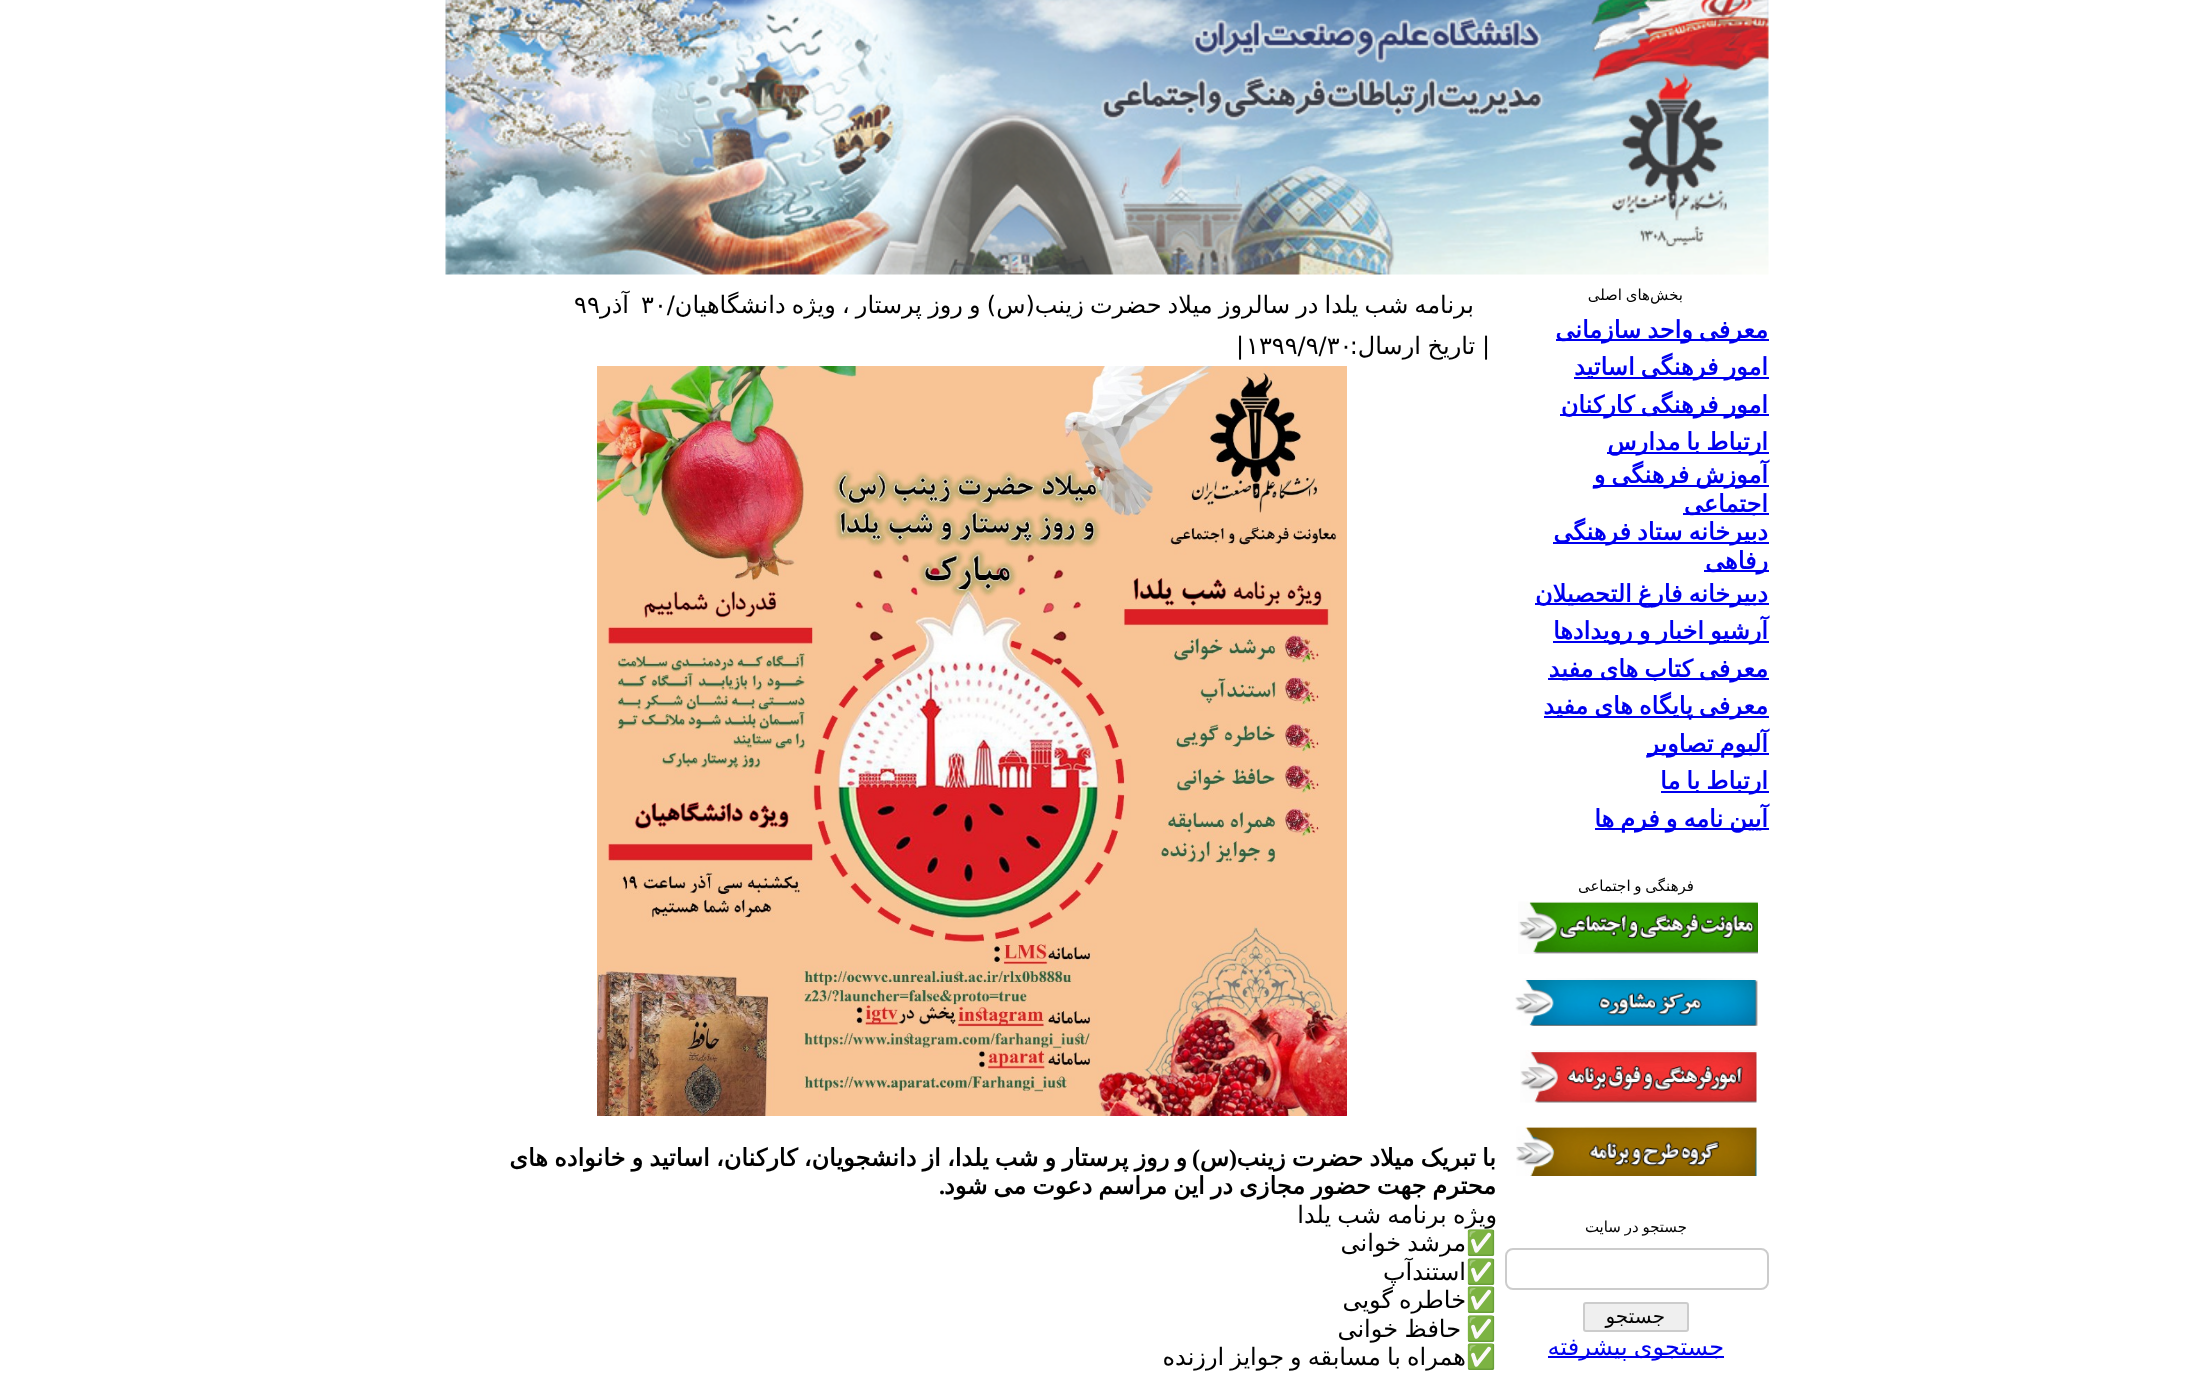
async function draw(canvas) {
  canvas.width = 2212
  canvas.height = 1378
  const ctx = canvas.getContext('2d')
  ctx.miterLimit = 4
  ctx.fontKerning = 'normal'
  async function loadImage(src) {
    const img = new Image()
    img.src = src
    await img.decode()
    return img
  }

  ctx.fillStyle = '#fff'
  ctx.fillRect(0, 0, 2212, 1378)
  ctx.drawImage(await loadImage('image0.png'), 445, 0, 1324, 275)
  ctx.direction = 'rtl'
  ctx.font = '15px DejaVu Sans'
  ctx.fillStyle = '#000'
  ctx.fillText('بخش', 1683, 300)
  ctx.wordSpacing = '-1px'
  ctx.fillText('های اصلی', 1650, 300)
  ctx.fillStyle = '#00e'
  ctx.fillRect(1556, 339, 213, 2)
  ctx.wordSpacing = '-1.6px'
  ctx.font = 'bold 24px DejaVu Sans'
  ctx.fillText('معرفی واحد سازمانی', 1768, 338)
  ctx.fillRect(1574, 377, 195, 2)
  ctx.fillText('امور فرهنگی اساتید', 1768, 375)
  ctx.fillRect(1560, 414, 209, 2)
  ctx.fillText('امور فرهنگی کارکنان', 1768, 413)
  ctx.fillRect(1607, 452, 162, 2)
  ctx.fillText('ارتباط با مدارس', 1768, 450)
  ctx.fillRect(1593, 485, 176, 2)
  ctx.fillText('آموزش فرهنگی و', 1768, 483)
  ctx.fillRect(1683, 513, 86, 2)
  ctx.wordSpacing = '0px'
  ctx.fillText('اجتماعی', 1768, 512)
  ctx.fillRect(1553, 542, 216, 2)
  ctx.wordSpacing = '-1.6px'
  ctx.fillText('دبیرخانه ستاد فرهنگی', 1768, 540)
  ctx.fillRect(1704, 570, 65, 2)
  ctx.wordSpacing = '0px'
  ctx.fillText('رفاهی', 1768, 569)
  ctx.fillRect(1535, 603, 234, 2)
  ctx.wordSpacing = '-1.6px'
  ctx.fillText('دبیرخانه فارغ التحصیلان', 1768, 602)
  ctx.fillRect(1553, 641, 216, 2)
  ctx.fillText('آرشیو اخبار و رویدادها', 1768, 639)
  ctx.fillRect(1548, 678, 221, 2)
  ctx.fillText('معرفی کتاب های مفید', 1768, 677)
  ctx.fillRect(1544, 716, 225, 2)
  ctx.fillText('معرفی پایگاه های مفید', 1768, 714)
  ctx.fillRect(1647, 753, 122, 2)
  ctx.fillText('آلبوم تصاویر', 1768, 752)
  ctx.fillRect(1661, 791, 108, 2)
  ctx.fillText('ارتباط با ما', 1768, 789)
  ctx.fillRect(1595, 828, 174, 2)
  ctx.fillText('آیین نامه و فرم ها', 1768, 827)
  ctx.wordSpacing = '-1px'
  ctx.font = '15px DejaVu Sans'
  ctx.fillStyle = '#000'
  ctx.fillText('فرهنگی و اجتماعی', 1694, 891)
  ctx.drawImage(await loadImage('image1.png'), 1518, 901, 240, 53)
  ctx.drawImage(await loadImage('image2.png'), 1515, 978, 243, 48)
  ctx.drawImage(await loadImage('image3.png'), 1520, 1050, 237, 53)
  ctx.drawImage(await loadImage('image4.png'), 1516, 1126, 241, 50)
  ctx.fillText('جستجو در سایت', 1687, 1232)
  ctx.beginPath()
  ctx.roundRect(1506, 1249, 262, 40, 7)
  ctx.strokeStyle = '#ccc'
  ctx.lineWidth = 2
  ctx.stroke()
  ctx.fillStyle = '#efefef'
  ctx.beginPath()
  ctx.roundRect(1584, 1303, 104, 28, 2)
  ctx.fill()
  ctx.stroke()
  ctx.wordSpacing = '0px'
  ctx.font = '20px DejaVu Sans'
  ctx.fillStyle = '#000'
  ctx.fillText('جستجو', 1665, 1323)
  ctx.fillStyle = '#00e'
  ctx.fillRect(1548, 1356, 176, 2)
  ctx.wordSpacing = '-1.5px'
  ctx.font = '24px DejaVu Sans'
  ctx.fillText('جستجوی پیشرفته', 1724, 1355)
  ctx.fillStyle = '#000'
  ctx.fillText('برنامه شب یلدا در سالروز میلاد حضرت زینب(س) و روز پرستار ، ویژه دانشگاهیان/', 1474, 313)
  ctx.wordSpacing = '0px'
  ctx.direction = 'ltr'
  ctx.fillText('۳۰', 641, 313)
  ctx.fillText('۹۹', 574, 313)
  ctx.direction = 'rtl'
  ctx.fillText('آذر', 629, 313)
  ctx.wordSpacing = '-1px'
  ctx.fillText('| تاریخ ارسال:', 1490, 354)
  ctx.wordSpacing = '0px'
  ctx.direction = 'ltr'
  ctx.fillText('۱۳۹۹/۹/۳۰', 1246, 354)
  ctx.fillText('|', 1236, 354)
  ctx.drawImage(await loadImage('image5.png'), 597, 366, 750, 750)
  ctx.wordSpacing = '-1.5px'
  ctx.direction = 'rtl'
  ctx.font = 'bold 24px DejaVu Sans'
  ctx.fillText('با تبریک میلاد حضرت زینب', 1496, 1166)
  ctx.fillText('و روز پرستار و شب یلدا، از دانشجویان، کارکنان، اساتید و خانواده های', 1187, 1166)
  ctx.wordSpacing = '0px'
  ctx.font = 'bold 24px Liberation Serif'
  ctx.fillText('(', 1237, 1166)
  ctx.font = 'bold 24px DejaVu Sans'
  ctx.fillText('س', 1229, 1166)
  ctx.font = 'bold 24px Liberation Serif'
  ctx.fillText(')', 1200, 1166)
  ctx.wordSpacing = '-1.6px'
  ctx.font = 'bold 24px DejaVu Sans'
  ctx.fillText('محترم جهت حضور مجازی در این مراسم دعوت می شود', 1496, 1194)
  ctx.wordSpacing = '0px'
  ctx.font = 'bold 24px Liberation Serif'
  ctx.fillText('.', 945, 1194)
  ctx.wordSpacing = '-1.5px'
  ctx.font = '24px DejaVu Sans'
  ctx.fillText('ویژه برنامه شب یلدا', 1497, 1223)
  ctx.wordSpacing = '-1.6px'
  ctx.fillText('مرشد خوانی', 1466, 1251)
  ctx.wordSpacing = '0px'
  ctx.font = '24px Noto Color Emoji'
  ctx.fillText('✅', 1496, 1251)
  ctx.fillText('✅', 1496, 1280)
  ctx.font = '24px DejaVu Sans'
  ctx.fillText('استندآپ', 1466, 1280)
  ctx.wordSpacing = '-1.6px'
  ctx.fillText('خاطره گویی', 1466, 1308)
  ctx.wordSpacing = '0px'
  ctx.font = '24px Noto Color Emoji'
  ctx.fillText('✅', 1496, 1308)
  ctx.fillText('✅', 1496, 1337)
  ctx.wordSpacing = '-1px'
  ctx.font = '24px DejaVu Sans'
  ctx.fillText('حافظ خوانی', 1461, 1337)
  ctx.wordSpacing = '-1.6px'
  ctx.fillText('همراه با مسابقه و جوایز ارزنده', 1466, 1365)
  ctx.wordSpacing = '0px'
  ctx.font = '24px Noto Color Emoji'
  ctx.fillText('✅', 1496, 1365)
}

draw(document.querySelector('canvas'))
